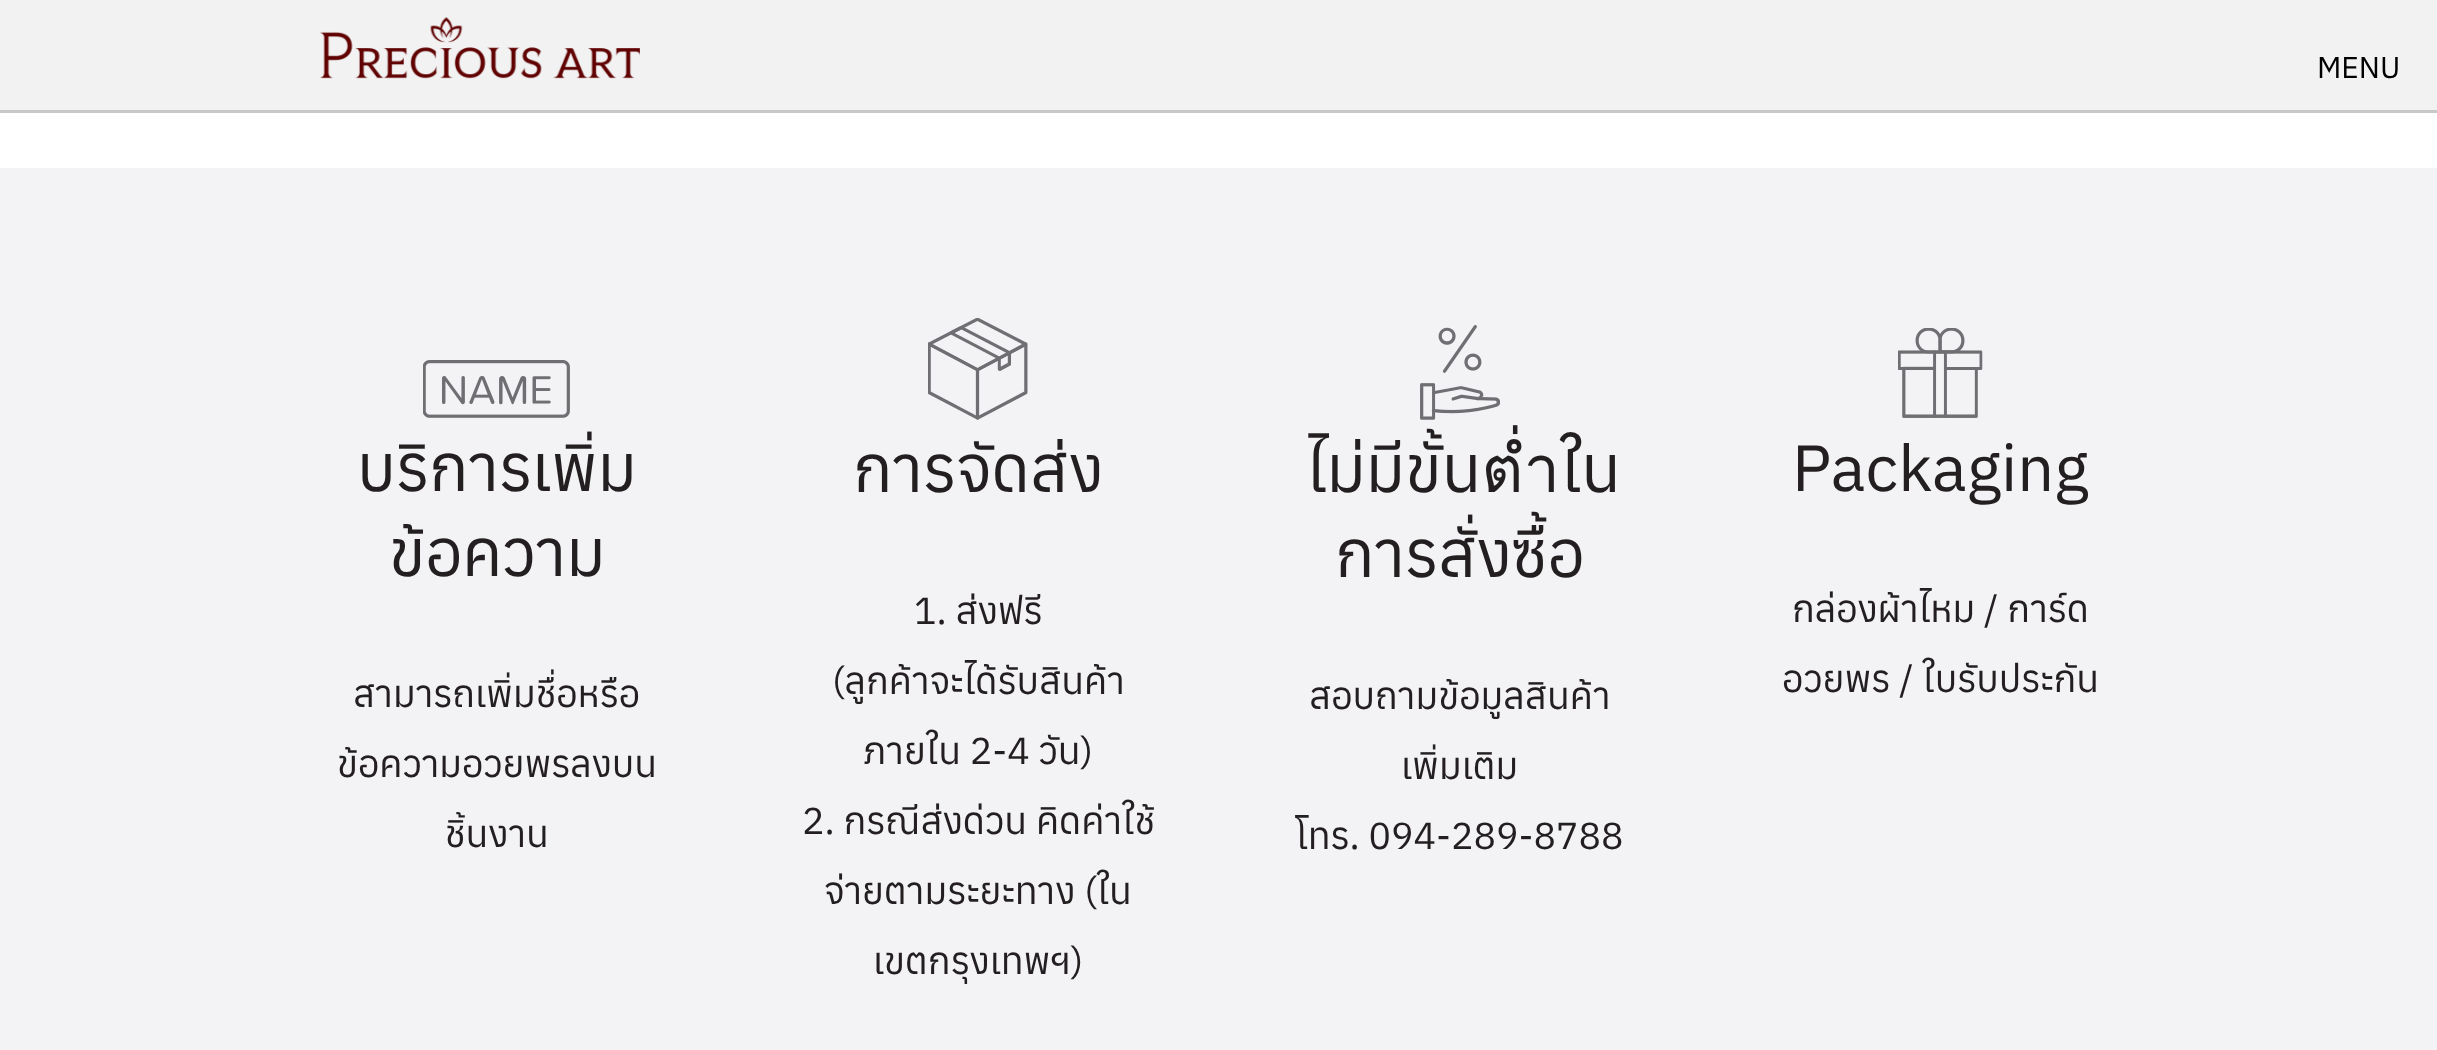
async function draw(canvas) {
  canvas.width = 2437
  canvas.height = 1050
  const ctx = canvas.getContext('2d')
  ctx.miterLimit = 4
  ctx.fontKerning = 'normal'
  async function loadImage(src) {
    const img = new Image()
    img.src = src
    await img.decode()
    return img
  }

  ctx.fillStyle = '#fff'
  ctx.fillRect(0, 0, 2437, 1050)
  ctx.fillStyle = '#f2f2f2'
  ctx.fillRect(0, 0, 2437, 110)
  ctx.fillStyle = '#c8c8c8'
  ctx.fillRect(0, 110, 2437, 3)
  ctx.drawImage(await loadImage('image0.png'), 320, 17, 320, 62)
  ctx.font = '30px anuphan'
  ctx.fillStyle = '#000'
  ctx.fillText('MENU', 2317, 78)
  ctx.fillStyle = '#f3f3f5'
  ctx.fillRect(0, 168, 2437, 882)
  ctx.drawImage(await loadImage('image1.png'), 423, 360, 147, 58)
  ctx.font = '65px anuphan'
  ctx.fillStyle = '#231f20'
  ctx.fillText('บริการเพิ่ม', 357, 491)
  ctx.fillText('ข้อความ', 389, 576)
  ctx.font = '37.5px anuphan'
  ctx.fillText('สามารถเพิ่มชื่อหรือ', 353, 707)
  ctx.fillText('ข้อความอวยพรลงบน', 337, 777)
  ctx.fillText('ชิ้นงาน', 445, 847)
  ctx.drawImage(await loadImage('image2.png'), 928, 318, 100, 102)
  ctx.font = '65px anuphan'
  ctx.fillText('การจัดส่ง', 853, 492)
  ctx.font = '37.5px anuphan'
  ctx.fillText('1. ส่งฟรี', 914, 624)
  ctx.fillText('(ลูกค้าจะได้รับสินค้า', 832, 694)
  ctx.fillText('ภายใน 2-4 วัน)', 863, 764)
  ctx.fillText('2. กรณีส่งด่วน คิดค่าใช้', 802, 834)
  ctx.fillText('จ่ายตามระยะทาง (ใน', 824, 904)
  ctx.fillText('เขตกรุงเทพฯ)', 873, 974)
  ctx.drawImage(await loadImage('image3.png'), 1420, 325, 80, 95)
  ctx.font = '65px anuphan'
  ctx.fillText('ไม่มีขั้นต่ำใน', 1306, 492)
  ctx.fillText('การสั่งซื้อ', 1335, 577)
  ctx.font = '37.5px anuphan'
  ctx.fillText('สอบถามข้อมูลสินค้า', 1309, 709)
  ctx.fillText('เพิ่มเติม', 1401, 779)
  ctx.fillText('โทร. 094-289-8788', 1296, 849)
  ctx.drawImage(await loadImage('image4.png'), 1898, 328, 85, 90)
  ctx.font = '65px anuphan'
  ctx.fillText('Packaging', 1792, 491)
  ctx.font = '37.5px anuphan'
  ctx.fillText('กล่องผ้าไหม / การ์ด', 1792, 622)
  ctx.fillText('อวยพร / ใบรับประกัน', 1782, 692)
}

draw(document.querySelector('canvas'))
